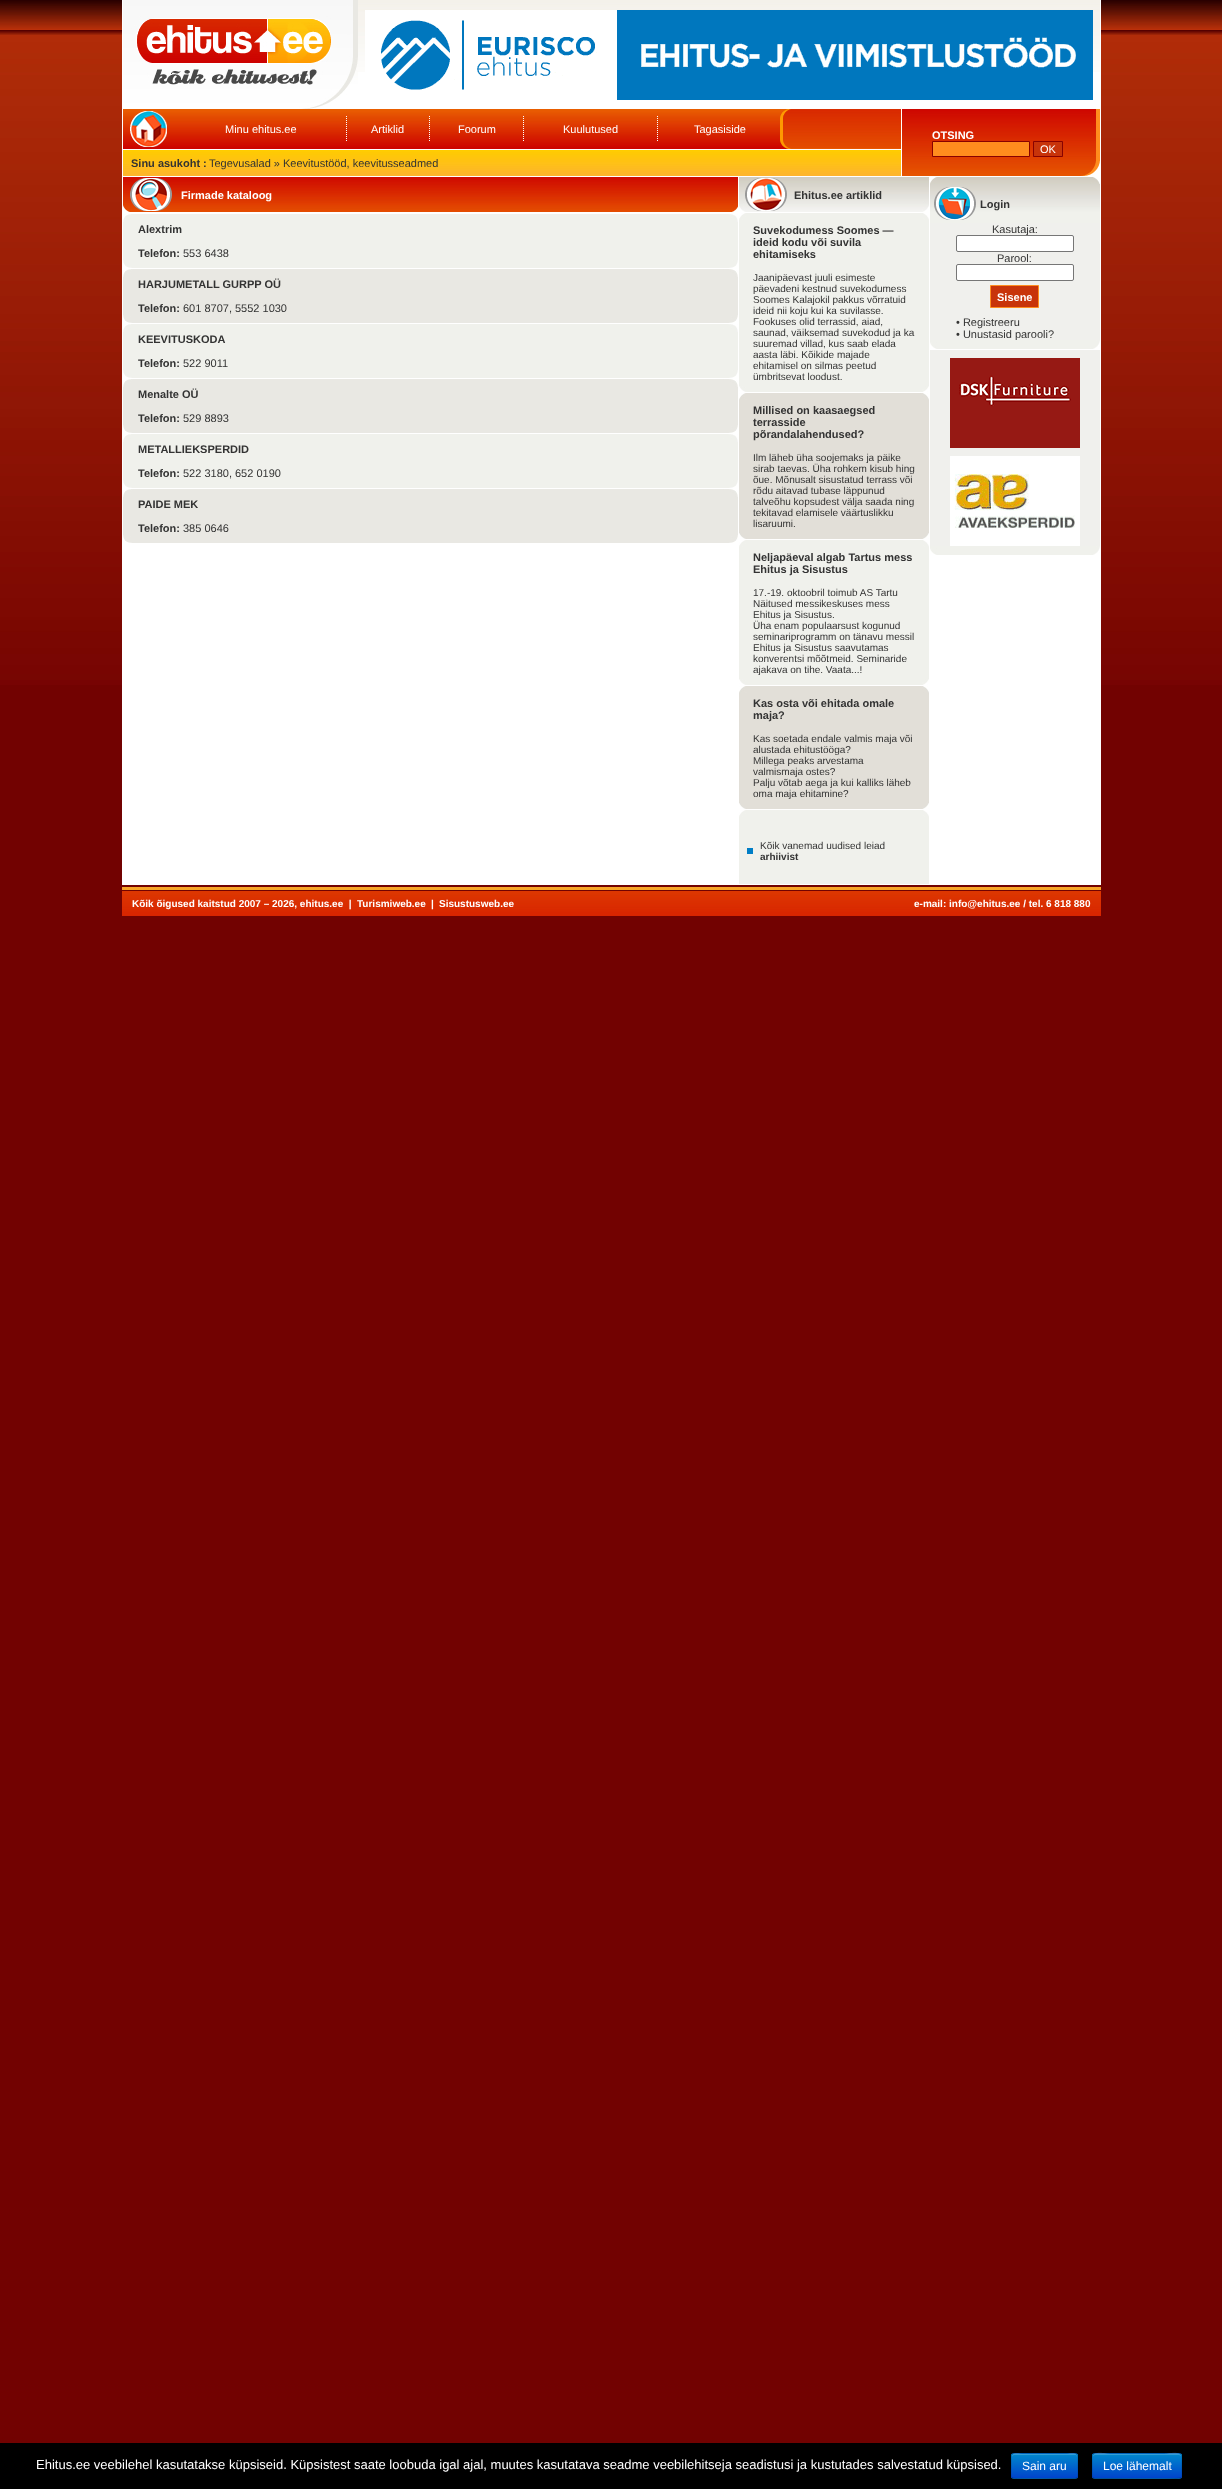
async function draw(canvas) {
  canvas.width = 1222
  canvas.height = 2489
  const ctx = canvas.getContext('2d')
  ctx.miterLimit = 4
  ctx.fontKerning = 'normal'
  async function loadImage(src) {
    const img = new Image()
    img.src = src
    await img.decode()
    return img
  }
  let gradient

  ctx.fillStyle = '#720201'
  ctx.fillRect(0, 0, 1222, 2489)
  ctx.drawImage(await loadImage('image0.png'), 0, 0, 1222, 685)
  ctx.fillStyle = '#fff'
  ctx.fillRect(122, 0, 979, 885)
  ctx.drawImage(await loadImage('image1.png'), 123, 0, 235, 109)
  ctx.drawImage(await loadImage('image2.png'), 358, 0, 742, 72)
  ctx.drawImage(await loadImage('image3.png'), 365, 10, 728, 90)
  ctx.drawImage(await loadImage('image4.png'), 791, 109, 110, 40)
  ctx.drawImage(await loadImage('image5.png'), 123, 109, 657, 40)
  ctx.drawImage(await loadImage('image6.png'), 130, 111, 37, 36)
  ctx.font = '11px Liberation Sans'
  ctx.fillText('Minu ehitus.ee', 225, 133)
  ctx.drawImage(await loadImage('image7.png'), 346, 116, 1, 25)
  ctx.fillText('Artiklid', 371, 133)
  ctx.drawImage(await loadImage('image7.png'), 429, 116, 1, 25)
  ctx.fillText('Foorum', 458, 133)
  ctx.drawImage(await loadImage('image7.png'), 523, 116, 1, 25)
  ctx.fillText('Kuulutused', 563, 133)
  ctx.drawImage(await loadImage('image7.png'), 657, 116, 1, 25)
  ctx.fillText('Tagasiside', 694, 133)
  ctx.drawImage(await loadImage('image8.png'), 780, 109, 11, 40)
  ctx.drawImage(await loadImage('image9.png'), 123, 150, 778, 26)
  ctx.font = 'bold 11px Liberation Sans'
  ctx.fillStyle = '#333'
  ctx.fillText('Sinu asukoht :', 131, 167)
  ctx.font = '11px Liberation Sans'
  ctx.fillText('Tegevusalad » Keevitustööd, keevitusseadmed', 209, 167)
  ctx.drawImage(await loadImage('image10.png'), 902, 109, 179, 67)
  ctx.font = 'bold 11px Liberation Sans'
  ctx.fillStyle = '#fff'
  ctx.fillText('OTSING', 932, 139)
  ctx.fillStyle = '#ff8d1e'
  ctx.beginPath()
  ctx.rect(932.5, 141.5, 97, 15)
  ctx.fill()
  ctx.strokeStyle = '#880201'
  ctx.stroke()
  ctx.fillStyle = '#c8340a'
  ctx.beginPath()
  ctx.rect(1033.5, 141.5, 29, 15)
  ctx.fill()
  ctx.stroke()
  ctx.font = '11px Liberation Sans'
  ctx.fillStyle = '#fff'
  ctx.fillText('OK', 1040, 153)
  ctx.drawImage(await loadImage('image11.png'), 1081, 109, 19, 67)
  ctx.drawImage(await loadImage('image12.png'), 123, 177, 7, 35)
  ctx.drawImage(await loadImage('image13.png'), 130, 177, 51, 35)
  ctx.drawImage(await loadImage('image14.png'), 130, 178, 42, 33)
  ctx.drawImage(await loadImage('image15.png'), 181, 177, 550, 35)
  ctx.font = 'bold 11px Liberation Sans'
  ctx.fillText('Firmade kataloog', 181, 199)
  ctx.drawImage(await loadImage('image16.png'), 731, 177, 7, 35)
  ctx.fillStyle = '#f0f1ec'
  ctx.fillRect(123, 222, 615, 38)
  ctx.drawImage(await loadImage('image17.png'), 123, 214, 615, 8)
  ctx.fillStyle = '#333'
  ctx.fillText('Alextrim', 138, 233)
  ctx.fillText('Telefon:', 138, 257)
  ctx.font = '11px Liberation Sans'
  ctx.fillText('553 6438', 183, 257)
  ctx.drawImage(await loadImage('image18.png'), 123, 260, 615, 8)
  ctx.fillStyle = '#e9e8e3'
  ctx.fillRect(123, 277, 615, 38)
  ctx.drawImage(await loadImage('image19.png'), 123, 269, 615, 8)
  ctx.font = 'bold 11px Liberation Sans'
  ctx.fillStyle = '#333'
  ctx.fillText('HARJUMETALL GURPP OÜ', 138, 288)
  ctx.fillText('Telefon:', 138, 312)
  ctx.font = '11px Liberation Sans'
  ctx.fillText('601 8707, 5552 1030', 183, 312)
  ctx.drawImage(await loadImage('image20.png'), 123, 315, 615, 8)
  ctx.fillStyle = '#f0f1ec'
  ctx.fillRect(123, 332, 615, 38)
  ctx.drawImage(await loadImage('image17.png'), 123, 324, 615, 8)
  ctx.font = 'bold 11px Liberation Sans'
  ctx.fillStyle = '#333'
  ctx.fillText('KEEVITUSKODA', 138, 343)
  ctx.fillText('Telefon:', 138, 367)
  ctx.font = '11px Liberation Sans'
  ctx.fillText('522 9011', 183, 367)
  ctx.drawImage(await loadImage('image18.png'), 123, 370, 615, 8)
  ctx.fillStyle = '#e9e8e3'
  ctx.fillRect(123, 387, 615, 38)
  ctx.drawImage(await loadImage('image19.png'), 123, 379, 615, 8)
  ctx.font = 'bold 11px Liberation Sans'
  ctx.fillStyle = '#333'
  ctx.fillText('Menalte OÜ', 138, 398)
  ctx.fillText('Telefon:', 138, 422)
  ctx.font = '11px Liberation Sans'
  ctx.fillText('529 8893', 183, 422)
  ctx.drawImage(await loadImage('image20.png'), 123, 425, 615, 8)
  ctx.fillStyle = '#f0f1ec'
  ctx.fillRect(123, 442, 615, 38)
  ctx.drawImage(await loadImage('image17.png'), 123, 434, 615, 8)
  ctx.font = 'bold 11px Liberation Sans'
  ctx.fillStyle = '#333'
  ctx.fillText('METALLIEKSPERDID', 138, 453)
  ctx.fillText('Telefon:', 138, 477)
  ctx.font = '11px Liberation Sans'
  ctx.fillText('522 3180, 652 0190', 183, 477)
  ctx.drawImage(await loadImage('image18.png'), 123, 480, 615, 8)
  ctx.fillStyle = '#e9e8e3'
  ctx.fillRect(123, 497, 615, 38)
  ctx.drawImage(await loadImage('image19.png'), 123, 489, 615, 8)
  ctx.font = 'bold 11px Liberation Sans'
  ctx.fillStyle = '#333'
  ctx.fillText('PAIDE MEK', 138, 508)
  ctx.fillText('Telefon:', 138, 532)
  ctx.font = '11px Liberation Sans'
  ctx.fillText('385 0646', 183, 532)
  ctx.drawImage(await loadImage('image20.png'), 123, 535, 615, 8)
  ctx.drawImage(await loadImage('image21.png'), 739, 177, 190, 35)
  ctx.drawImage(await loadImage('image22.png'), 745, 178, 42, 33)
  ctx.font = 'bold 11px Liberation Sans'
  ctx.fillText('Ehitus.ee artiklid', 794, 199)
  ctx.drawImage(await loadImage('image23.png'), 739, 213, 190, 7)
  ctx.fillStyle = '#f0f1ec'
  ctx.fillRect(739, 220, 190, 166)
  ctx.fillStyle = '#333'
  ctx.fillText('Suvekodumess Soomes —', 753, 234)
  ctx.fillText('ideid kodu või suvila', 753, 246)
  ctx.fillText('ehitamiseks', 753, 258)
  ctx.font = '10px Liberation Sans'
  ctx.fillText('Jaanipäevast juuli esimeste', 753, 281)
  ctx.fillText('päevadeni kestnud suvekodumess', 753, 292)
  ctx.fillText('Soomes Kalajokil pakkus võrratuid', 753, 303)
  ctx.fillText('ideid nii koju kui ka suvilasse.', 753, 314)
  ctx.fillText('Fookuses olid terrassid, aiad,', 753, 325)
  ctx.fillText('saunad, väiksemad suvekodud ja ka', 753, 336)
  ctx.fillText('suuremad villad, kus saab elada', 753, 347)
  ctx.fillText('aasta läbi. Kõikide majade', 753, 358)
  ctx.fillText('ehitamisel on silmas peetud', 753, 369)
  ctx.fillText('ümbritsevat loodust.', 753, 380)
  ctx.drawImage(await loadImage('image24.png'), 739, 386, 190, 6)
  ctx.drawImage(await loadImage('image25.png'), 739, 393, 190, 7)
  ctx.fillStyle = '#e2dfd8'
  ctx.fillRect(739, 400, 190, 133)
  ctx.font = 'bold 11px Liberation Sans'
  ctx.fillStyle = '#333'
  ctx.fillText('Millised on kaasaegsed', 753, 414)
  ctx.fillText('terrasside', 753, 426)
  ctx.fillText('põrandalahendused?', 753, 438)
  ctx.font = '10px Liberation Sans'
  ctx.fillText('Ilm läheb üha soojemaks ja päike', 753, 461)
  ctx.fillText('sirab taevas. Üha rohkem kisub hing', 753, 472)
  ctx.fillText('õue. Mõnusalt sisustatud terrass või', 753, 483)
  ctx.fillText('rõdu aitavad tubase läppunud', 753, 494)
  ctx.fillText('talveõhu kopsudest välja saada ning', 753, 505)
  ctx.fillText('tekitavad elamisele väärtuslikku', 753, 516)
  ctx.fillText('lisaruumi.', 753, 527)
  ctx.drawImage(await loadImage('image26.png'), 739, 533, 190, 6)
  ctx.drawImage(await loadImage('image23.png'), 739, 540, 190, 7)
  ctx.fillStyle = '#f0f1ec'
  ctx.fillRect(739, 547, 190, 132)
  ctx.font = 'bold 11px Liberation Sans'
  ctx.fillStyle = '#333'
  ctx.fillText('Neljapäeval algab Tartus mess', 753, 561)
  ctx.fillText('Ehitus ja Sisustus', 753, 573)
  ctx.font = '10px Liberation Sans'
  ctx.fillText('17.-19. oktoobril toimub AS Tartu', 753, 596)
  ctx.fillText('Näitused messikeskuses mess', 753, 607)
  ctx.fillText('Ehitus ja Sisustus.', 753, 618)
  ctx.fillText('Üha enam populaarsust kogunud', 753, 629)
  ctx.fillText('seminariprogramm on tänavu messil', 753, 640)
  ctx.fillText('Ehitus ja Sisustus saavutamas', 753, 651)
  ctx.fillText('konverentsi mõõtmeid. Seminaride', 753, 662)
  ctx.fillText('ajakava on tihe. Vaata...!', 753, 673)
  ctx.drawImage(await loadImage('image24.png'), 739, 679, 190, 6)
  ctx.drawImage(await loadImage('image25.png'), 739, 686, 190, 7)
  ctx.fillStyle = '#e2dfd8'
  ctx.fillRect(739, 693, 190, 110)
  ctx.font = 'bold 11px Liberation Sans'
  ctx.fillStyle = '#333'
  ctx.fillText('Kas osta või ehitada omale', 753, 707)
  ctx.fillText('maja?', 753, 719)
  ctx.font = '10px Liberation Sans'
  ctx.fillText('Kas soetada endale valmis maja või', 753, 742)
  ctx.fillText('alustada ehitustööga?', 753, 753)
  ctx.fillText('Millega peaks arvestama', 753, 764)
  ctx.fillText('valmismaja ostes?', 753, 775)
  ctx.fillText('Palju võtab aega ja kui kalliks läheb', 753, 786)
  ctx.fillText('oma maja ehitamine?', 753, 797)
  ctx.drawImage(await loadImage('image26.png'), 739, 803, 190, 6)
  ctx.drawImage(await loadImage('image23.png'), 739, 810, 190, 7)
  ctx.fillStyle = '#f0f1ec'
  ctx.fillRect(739, 817, 190, 67)
  ctx.fillStyle = '#007ec6'
  ctx.fillRect(747, 848, 6, 6)
  ctx.fillStyle = '#333'
  ctx.fillText('Kõik vanemad uudised leiad', 760, 849)
  ctx.font = 'bold 10px Liberation Sans'
  ctx.fillText('arhiivist', 760, 860)
  ctx.drawImage(await loadImage('image27.png'), 930, 177, 170, 7)
  ctx.drawImage(await loadImage('image28.png'), 930, 184, 50, 39)
  ctx.drawImage(await loadImage('image29.png'), 934, 187, 42, 33)
  ctx.drawImage(await loadImage('image30.png'), 980, 184, 120, 39)
  ctx.font = 'bold 11px Liberation Sans'
  ctx.fillText('Login', 980, 208)
  ctx.fillStyle = '#f0f0ed'
  ctx.fillRect(930, 223, 170, 117)
  ctx.font = '11px Liberation Sans'
  ctx.fillStyle = '#333'
  ctx.fillText('Kasutaja:', 992, 233)
  ctx.fillStyle = '#fff'
  ctx.beginPath()
  ctx.roundRect(956.5, 235.5, 117, 16, 1.5)
  ctx.fill()
  ctx.strokeStyle = '#767676'
  ctx.stroke()
  ctx.fillStyle = '#333'
  ctx.fillText('Parool:', 997, 262)
  ctx.fillStyle = '#fff'
  ctx.beginPath()
  ctx.roundRect(956.5, 264.5, 117, 16, 1.5)
  ctx.fill()
  ctx.stroke()
  ctx.fillStyle = '#c8340a'
  ctx.beginPath()
  ctx.rect(990.5, 285.5, 48, 22)
  ctx.fill()
  ctx.strokeStyle = '#ff8d1e'
  ctx.stroke()
  ctx.font = 'bold 11px Liberation Sans'
  ctx.fillStyle = '#fff'
  ctx.fillText('Sisene', 997, 301)
  ctx.font = '11px Liberation Sans'
  ctx.fillStyle = '#333'
  ctx.fillText('• Registreeru', 956, 326)
  ctx.fillText('• Unustasid parooli?', 956, 338)
  ctx.drawImage(await loadImage('image31.png'), 930, 340, 170, 9)
  ctx.fillStyle = '#f0f0ed'
  ctx.fillRect(930, 350, 170, 196)
  ctx.drawImage(await loadImage('image32.png'), 950, 358, 130, 90)
  ctx.drawImage(await loadImage('image33.png'), 950, 456, 130, 90)
  ctx.drawImage(await loadImage('image31.png'), 930, 546, 170, 9)
  ctx.fillStyle = '#f7a527'
  ctx.fillRect(122, 887, 979, 3)
  ctx.drawImage(await loadImage('image34.png'), 122, 891, 489, 25)
  ctx.font = 'bold 10px Liberation Sans'
  ctx.fillStyle = '#fff'
  ctx.fillText('Kõik õigused kaitstud 2007 – 2026, ehitus.ee  |', 132, 907)
  ctx.fillText('Turismiweb.ee', 357, 907)
  ctx.fillText('|', 431, 907)
  ctx.fillText('Sisustusweb.ee', 439, 907)
  ctx.drawImage(await loadImage('image35.png'), 611, 891, 490, 25)
  ctx.fillText('e-mail: info@ehitus.ee / tel. 6 818 880', 914, 907)
  ctx.fillStyle = '#000'
  ctx.fillRect(0, 2443, 1222, 46)
  ctx.font = '13px Liberation Sans'
  ctx.fillStyle = '#fff'
  ctx.fillText('Ehitus.ee veebilehel kasutatakse küpsiseid. Küpsistest saate loobuda igal ajal, muutes kasutatava seadme veebilehitseja seadistusi ja kustutades salvestatud küpsised.', 36, 2469)
  ctx.fillStyle = '#006dcc'
  ctx.beginPath()
  ctx.roundRect(1011, 2453, 67, 26, 3)
  ctx.fill()
  ctx.save()
  ctx.beginPath()
  ctx.roundRect(1011, 2453, 67, 26, 3)
  ctx.clip()
  gradient = ctx.createLinearGradient(1045, 2454, 1045, 2478)
  gradient.addColorStop(0, '#08c')
  gradient.addColorStop(1, '#04c')
  ctx.fillStyle = gradient
  ctx.fillRect(1011, 2454, 67, 24)
  ctx.restore()
  ctx.fillStyle = '#ffffff33'
  ctx.beginPath()
  ctx.moveTo(1014, 2455)
  ctx.lineTo(1076, 2455)
  ctx.lineTo(1077, 2457)
  ctx.bezierCurveTo(1077, 2451, 1069, 2454, 1065, 2454)
  ctx.lineTo(1024, 2454)
  ctx.bezierCurveTo(1020, 2454, 1012, 2451, 1012, 2457)
  ctx.bezierCurveTo(1012, 2456, 1013, 2455, 1014, 2455)
  ctx.closePath()
  ctx.fill()
  ctx.beginPath()
  ctx.moveTo(1077, 2478)
  ctx.lineTo(1075, 2478.5)
  ctx.lineTo(1065, 2478.5)
  ctx.bezierCurveTo(1059, 2478.5, 1014.5, 2479.5, 1012.5, 2478)
  ctx.lineTo(1012, 2478)
  ctx.strokeStyle = '#00000040'
  ctx.stroke()
  ctx.beginPath()
  ctx.moveTo(1012, 2478)
  ctx.bezierCurveTo(1010.5, 2476, 1011.5, 2468.5, 1011.5, 2466)
  ctx.bezierCurveTo(1011.5, 2451.5, 1009, 2453.5, 1024, 2453.5)
  ctx.lineTo(1065, 2453.5)
  ctx.bezierCurveTo(1080, 2453.5, 1077.5, 2451.5, 1077.5, 2466)
  ctx.bezierCurveTo(1077.5, 2468.5, 1078.5, 2476, 1077, 2478)
  ctx.strokeStyle = '#0000001a'
  ctx.stroke()
  ctx.font = '12px Liberation Sans'
  ctx.fillStyle = '#fff'
  ctx.fillText('Sain aru', 1022, 2470)
  ctx.fillStyle = '#006dcc'
  ctx.beginPath()
  ctx.roundRect(1092, 2453, 90, 26, 3)
  ctx.fill()
  ctx.save()
  ctx.beginPath()
  ctx.roundRect(1092, 2453, 90, 26, 3)
  ctx.clip()
  gradient = ctx.createLinearGradient(1137, 2454, 1137, 2478)
  gradient.addColorStop(0, '#08c')
  gradient.addColorStop(1, '#04c')
  ctx.fillStyle = gradient
  ctx.fillRect(1092, 2454, 90, 24)
  ctx.restore()
  ctx.fillStyle = '#ffffff33'
  ctx.beginPath()
  ctx.moveTo(1095, 2455)
  ctx.lineTo(1179, 2455)
  ctx.bezierCurveTo(1180, 2455, 1181, 2456, 1181, 2457)
  ctx.bezierCurveTo(1181, 2450, 1167, 2454, 1165, 2454)
  ctx.lineTo(1109, 2454)
  ctx.bezierCurveTo(1107, 2454, 1093, 2450, 1093, 2457)
  ctx.bezierCurveTo(1093, 2456, 1094, 2455, 1095, 2455)
  ctx.closePath()
  ctx.fill()
  ctx.beginPath()
  ctx.moveTo(1181, 2478)
  ctx.lineTo(1180.5, 2478)
  ctx.bezierCurveTo(1178.5, 2479.5, 1116.5, 2478.5, 1109, 2478.5)
  ctx.lineTo(1095, 2478.5)
  ctx.lineTo(1093, 2478)
  ctx.strokeStyle = '#00000040'
  ctx.stroke()
  ctx.beginPath()
  ctx.moveTo(1093, 2478)
  ctx.bezierCurveTo(1091.5, 2476, 1092.5, 2471.5, 1092.5, 2469.5)
  ctx.bezierCurveTo(1092.5, 2450, 1089, 2453.5, 1109, 2453.5)
  ctx.lineTo(1165, 2453.5)
  ctx.bezierCurveTo(1185, 2453.5, 1181.5, 2450, 1181.5, 2469.5)
  ctx.bezierCurveTo(1181.5, 2471.5, 1182.5, 2476, 1181, 2478)
  ctx.strokeStyle = '#0000001a'
  ctx.stroke()
  ctx.fillStyle = '#fff'
  ctx.fillText('Loe lähemalt', 1103, 2470)
}

draw(document.querySelector('canvas'))
